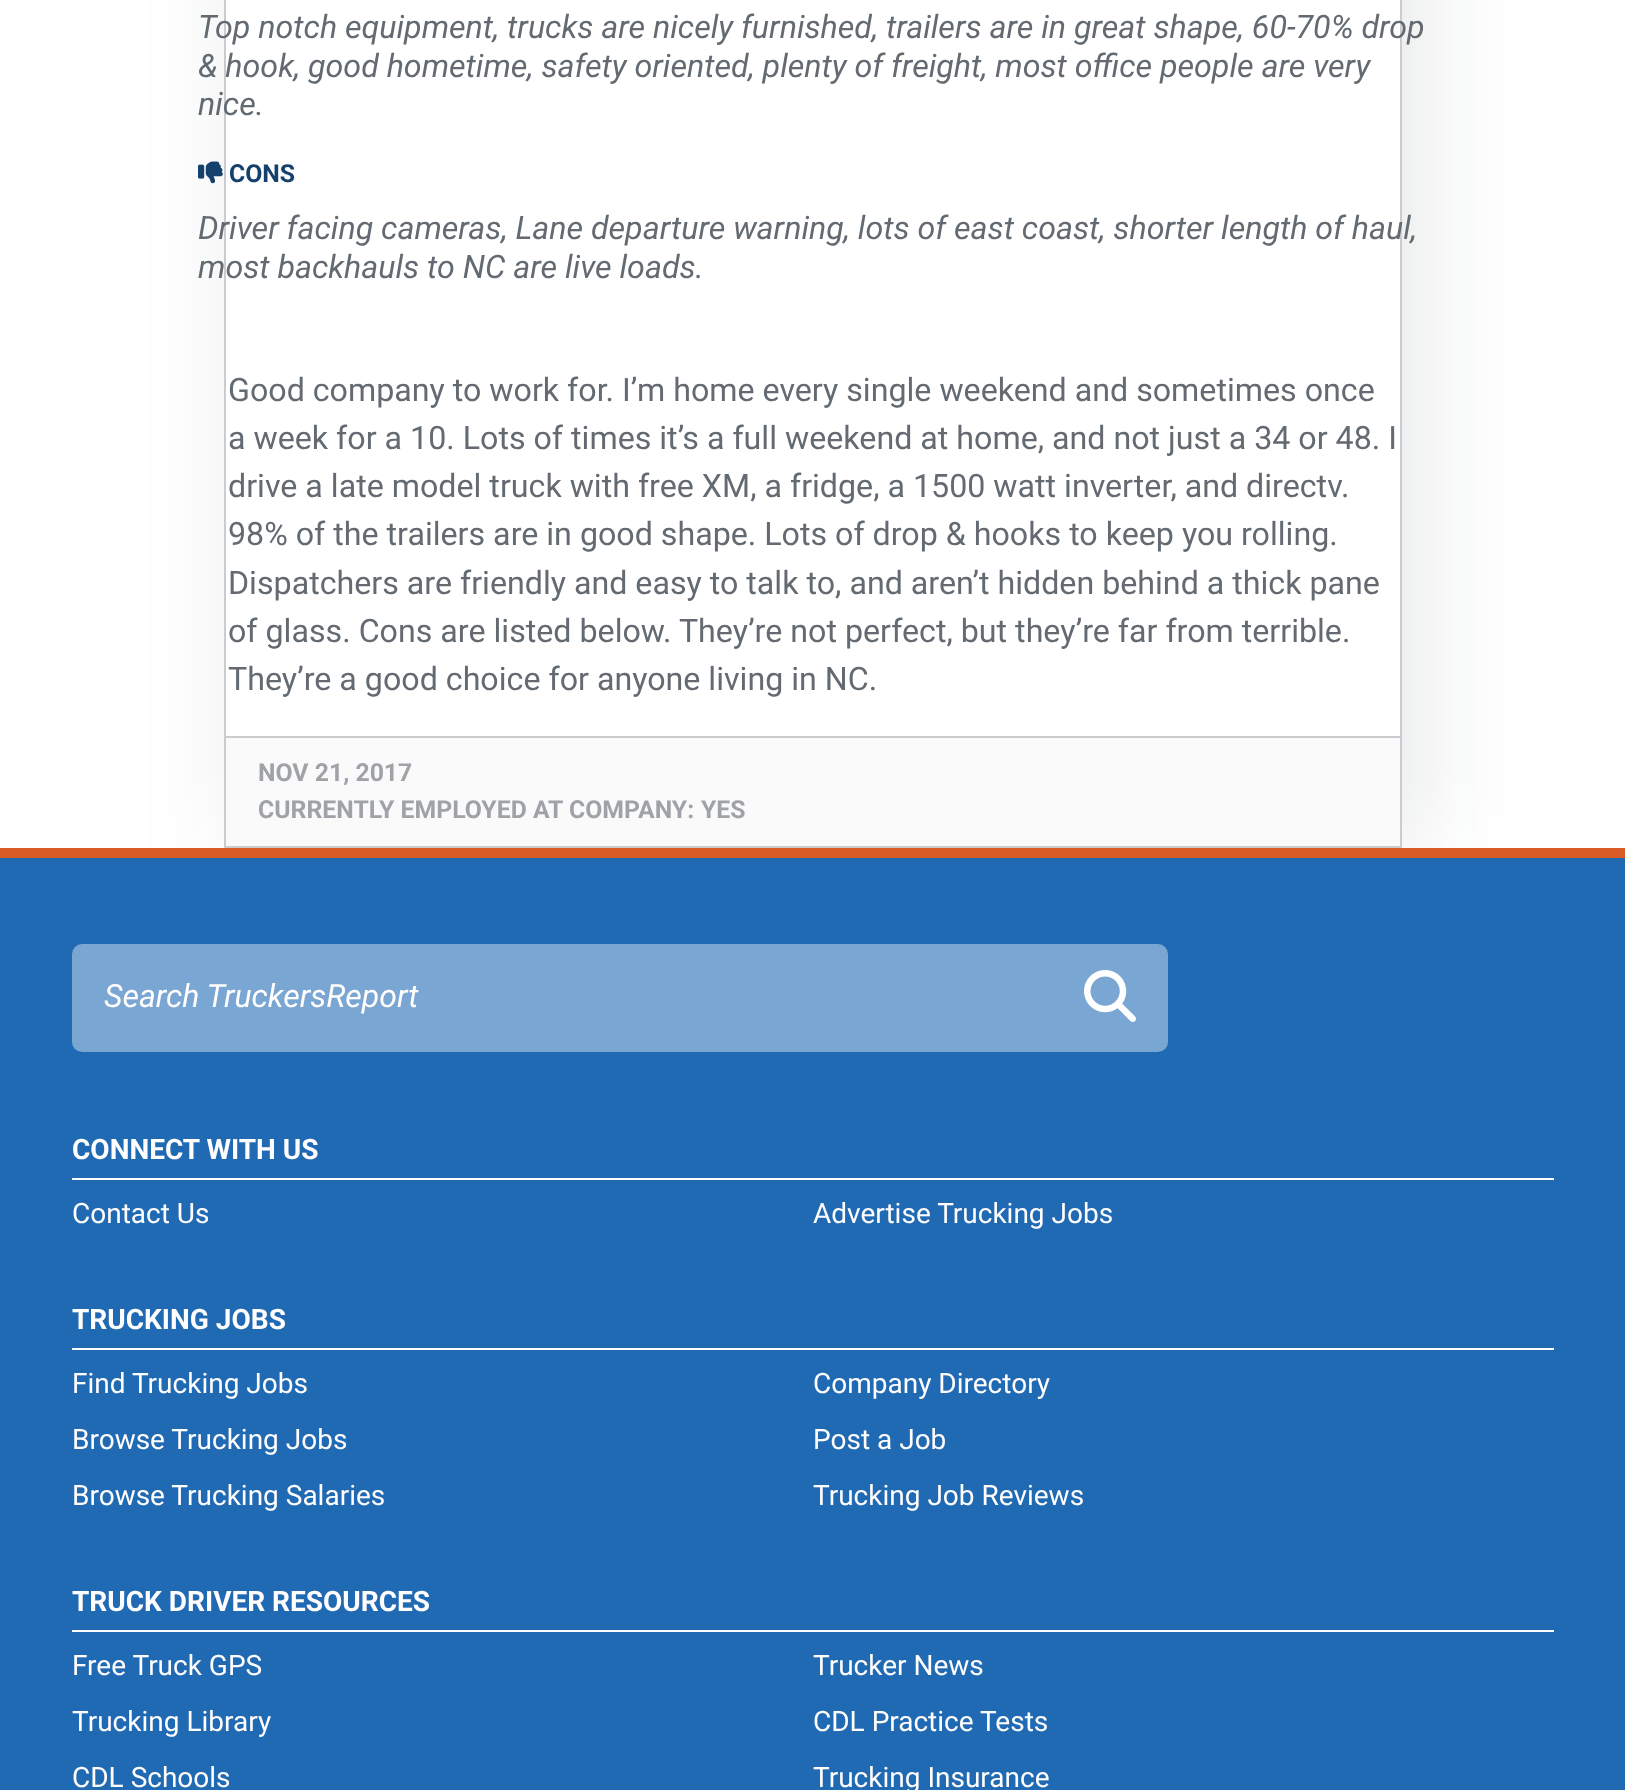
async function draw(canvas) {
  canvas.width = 1625
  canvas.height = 1790
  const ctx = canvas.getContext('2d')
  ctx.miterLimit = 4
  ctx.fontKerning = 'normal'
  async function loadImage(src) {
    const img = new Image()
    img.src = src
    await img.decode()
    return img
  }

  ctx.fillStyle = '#fff'
  ctx.fillRect(0, 0, 1625, 1790)
  ctx.save()
  ctx.beginPath()
  ctx.moveTo(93, 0)
  ctx.lineTo(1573, 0)
  ctx.lineTo(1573, 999)
  ctx.lineTo(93, 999)
  ctx.closePath()
  ctx.moveTo(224, -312)
  ctx.lineTo(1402, -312)
  ctx.lineTo(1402, 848)
  ctx.lineTo(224, 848)
  ctx.closePath()
  ctx.clip('evenodd')
  ctx.fillStyle = '#0f19241a'
  ctx.filter = 'blur(50px)'
  ctx.beginPath()
  ctx.rect(244, -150, 1178, 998)
  ctx.fill()
  ctx.filter = 'none'
  ctx.restore()
  ctx.strokeStyle = '#cacccf'
  ctx.lineWidth = 2
  ctx.strokeRect(225, -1, 1176, 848)
  ctx.font = 'italic 32.2px Roboto'
  ctx.fillStyle = '#636a71'
  ctx.fillText('Top notch equipment, trucks are nicely furnished, trailers are in great shape, 60-70% drop', 198, 38)
  ctx.fillText('& hook, good hometime, safety oriented, plenty of freight, most office people are very', 198, 77)
  ctx.fillText('nice.', 198, 115)
  ctx.drawImage(await loadImage('image0.png'), 198, 161, 25, 23)
  ctx.font = 'bold 24.8px Roboto'
  ctx.fillStyle = '#13406d'
  ctx.fillText('CONS', 229, 182)
  ctx.font = 'italic 32.2px Roboto'
  ctx.fillStyle = '#636a71'
  ctx.fillText('Driver facing cameras, Lane departure warning, lots of east coast, shorter length of haul,', 198, 239)
  ctx.fillText('most backhauls to NC are live loads.', 198, 278)
  ctx.font = '32.2px Roboto'
  ctx.fillText('Good company to work for. I’m home every single weekend and sometimes once', 228, 401)
  ctx.fillText('a week for a 10. Lots of times it’s a full weekend at home, and not just a 34 or 48. I', 228, 449)
  ctx.fillText('drive a late model truck with free XM, a fridge, a 1500 watt inverter, and directv.', 228, 497)
  ctx.fillText('98% of the trailers are in good shape. Lots of drop & hooks to keep you rolling.', 228, 545)
  ctx.fillText('Dispatchers are friendly and easy to talk to, and aren’t hidden behind a thick pane', 228, 594)
  ctx.fillText('of glass. Cons are listed below. They’re not perfect, but they’re far from terrible.', 228, 642)
  ctx.fillText('They’re a good choice for anyone living in NC.', 228, 690)
  ctx.fillStyle = '#fafafb'
  ctx.fillRect(226, 738, 1174, 108)
  ctx.fillStyle = '#cacccf'
  ctx.fillRect(226, 736, 1174, 2)
  ctx.font = 'bold 24.8px Roboto'
  ctx.fillStyle = '#9fa3a7'
  ctx.fillText('NOV 21, 2017', 258, 781)
  ctx.fillText('CURRENTLY EMPLOYED AT COMPANY:', 258, 818)
  ctx.fillText('YES', 701, 818)
  ctx.fillStyle = '#206ab4'
  ctx.fillRect(0, 858, 1625, 932)
  ctx.fillStyle = '#d95c26'
  ctx.fillRect(0, 848, 1625, 10)
  ctx.fillStyle = '#79a6d2'
  ctx.beginPath()
  ctx.roundRect(72, 944, 980, 108, [10, 0, 0, 10])
  ctx.fill()
  ctx.font = 'italic 32px Roboto'
  ctx.fillStyle = '#fffdfd'
  ctx.fillText('Search TruckersReport', 104, 1007)
  ctx.fillStyle = '#79a6d2'
  ctx.beginPath()
  ctx.roundRect(1052, 944, 116, 108, [0, 10, 10, 0])
  ctx.fill()
  ctx.drawImage(await loadImage('image1.png'), 1084, 970, 52, 52)
  ctx.fillStyle = '#fff'
  ctx.fillRect(72, 1178, 1482, 2)
  ctx.font = 'bold 28px Roboto'
  ctx.fillStyle = '#fffdfd'
  ctx.fillText('CONNECT WITH US', 72, 1159)
  ctx.font = '28px Roboto'
  ctx.fillText('Contact Us', 72, 1223)
  ctx.fillText('Advertise Trucking Jobs', 813, 1223)
  ctx.fillStyle = '#fff'
  ctx.fillRect(72, 1348, 1482, 2)
  ctx.font = 'bold 28px Roboto'
  ctx.fillStyle = '#fffdfd'
  ctx.fillText('TRUCKING JOBS', 72, 1329)
  ctx.font = '28px Roboto'
  ctx.fillText('Find Trucking Jobs', 72, 1393)
  ctx.fillText('Company Directory', 813, 1393)
  ctx.fillText('Browse Trucking Jobs', 72, 1449)
  ctx.fillText('Post a Job', 813, 1449)
  ctx.fillText('Browse Trucking Salaries', 72, 1505)
  ctx.fillText('Trucking Job Reviews', 813, 1505)
  ctx.fillStyle = '#fff'
  ctx.fillRect(72, 1630, 1482, 2)
  ctx.font = 'bold 28px Roboto'
  ctx.fillStyle = '#fffdfd'
  ctx.fillText('TRUCK DRIVER RESOURCES', 72, 1611)
  ctx.font = '28px Roboto'
  ctx.fillText('Free Truck GPS', 72, 1675)
  ctx.fillText('Trucker News', 813, 1675)
  ctx.fillText('Trucking Library', 72, 1731)
  ctx.fillText('CDL Practice Tests', 813, 1731)
  ctx.fillText('CDL Schools', 72, 1787)
  ctx.fillText('Trucking Insurance', 813, 1787)
}

draw(document.querySelector('canvas'))
